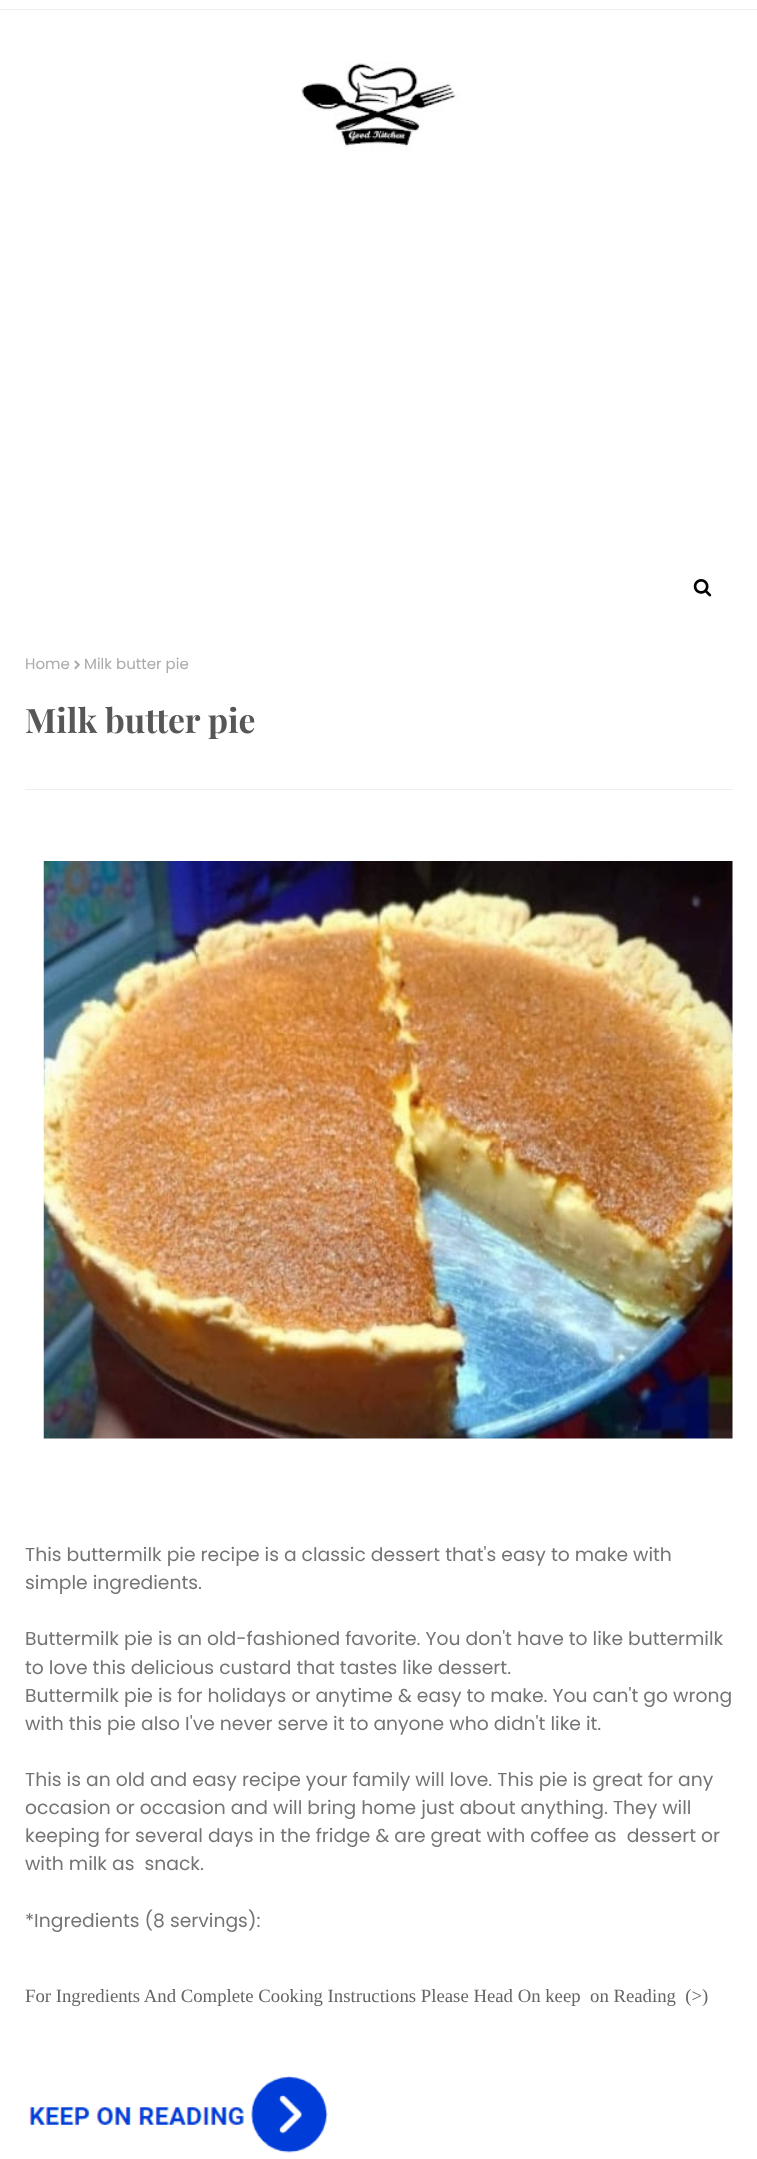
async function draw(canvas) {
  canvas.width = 757
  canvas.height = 2159
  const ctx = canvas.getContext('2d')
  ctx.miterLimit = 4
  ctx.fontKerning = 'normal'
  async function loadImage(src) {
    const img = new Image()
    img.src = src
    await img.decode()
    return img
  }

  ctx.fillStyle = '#fff'
  ctx.fillRect(0, 0, 757, 2159)
  ctx.fillStyle = '#eee'
  ctx.fillRect(0, 9, 757, 1)
  ctx.drawImage(await loadImage('image0.png'), 301, 62, 159, 89)
  ctx.drawImage(await loadImage('image1.png'), 693, 579, 19, 18)
  ctx.font = '15px Poppins'
  ctx.fillStyle = '#aaa'
  ctx.fillText('Home', 25, 669)
  ctx.drawImage(await loadImage('image2.png'), 74, 660, 6, 10)
  ctx.fillText('Milk butter pie', 84, 669)
  ctx.font = 'bold 33.75px Playfair Display'
  ctx.fillStyle = '#575757'
  ctx.fillText('Milk butter pie', 25, 733)
  ctx.fillStyle = '#eee'
  ctx.fillRect(25, 789, 708, 1)
  ctx.drawImage(await loadImage('image3.png'), 43, 861, 690, 578)
  ctx.font = '18.75px Poppins'
  ctx.fillStyle = '#747474'
  ctx.fillText('This buttermilk pie recipe is a classic dessert that\'s easy to make with', 25, 1561)
  ctx.fillText('simple ingredients.', 25, 1589)
  ctx.fillText('Buttermilk pie is an old-fashioned favorite. You don\'t have to like buttermilk', 25, 1645)
  ctx.fillText('to love this delicious custard that tastes like dessert.', 25, 1674)
  ctx.fillText('Buttermilk pie is for holidays or anytime & easy to make. You can\'t go wrong', 25, 1702)
  ctx.fillText('with this pie also I\'ve never serve it to anyone who didn\'t like it.', 25, 1730)
  ctx.fillText('This is an old and easy recipe your family will love. This pie is great for any', 25, 1786)
  ctx.fillText('occasion or occasion and will bring home just about anything. They will', 25, 1814)
  ctx.fillText('keeping for several days in the fridge & are great with coffee as  dessert or', 25, 1842)
  ctx.fillText('with milk as  snack.', 25, 1870)
  ctx.fillText('*Ingredients (8 servings):', 25, 1927)
  ctx.font = '18.75px Liberation Serif'
  ctx.fillStyle = '#656565'
  ctx.fillText('For Ingredients And Complete Cooking Instructions Please Head On keep  on Reading  (>)', 25, 2002)
  ctx.drawImage(await loadImage('image4.png'), 29, 2076, 299, 77)
}

draw(document.querySelector('canvas'))
